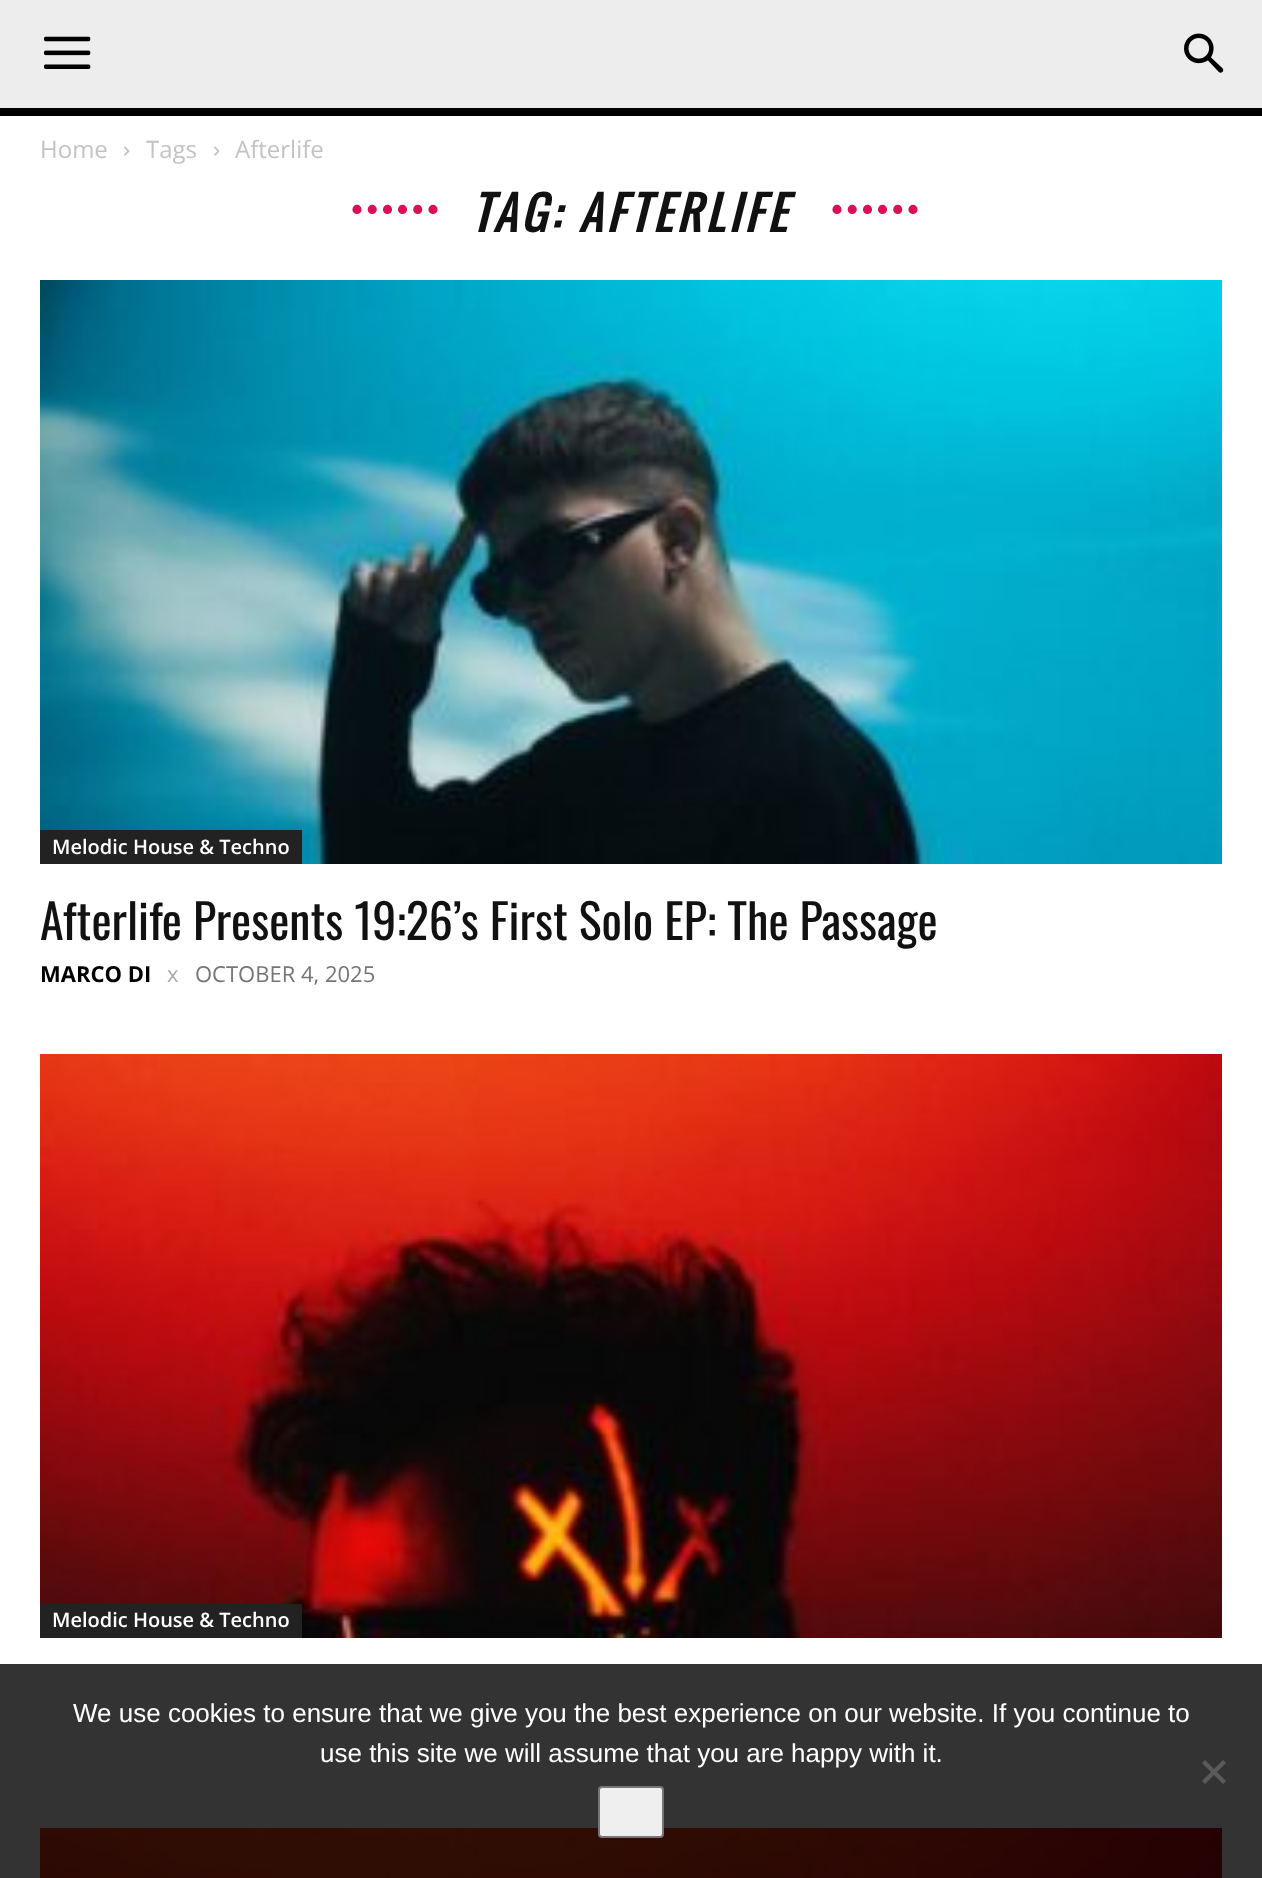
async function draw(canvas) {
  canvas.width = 1262
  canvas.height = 1878
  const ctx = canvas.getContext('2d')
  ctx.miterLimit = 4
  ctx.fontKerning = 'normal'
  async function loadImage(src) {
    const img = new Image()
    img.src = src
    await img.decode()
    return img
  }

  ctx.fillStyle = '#fff'
  ctx.fillRect(0, 0, 1262, 1878)
  ctx.fillStyle = '#ededed'
  ctx.fillRect(0, 0, 1262, 108)
  ctx.drawImage(await loadImage('image0.png'), 44, 36, 47, 33)
  ctx.drawImage(await loadImage('image1.png'), 1184, 33, 40, 40)
  ctx.fillStyle = '#000'
  ctx.fillRect(0, 108, 1262, 8)
  ctx.font = '24px Open Sans'
  ctx.fillStyle = '#c3c3c3'
  ctx.fillText('Home', 40, 158)
  ctx.drawImage(await loadImage('image2.png'), 124, 146, 6, 10)
  ctx.fillText('Tags', 146, 158)
  ctx.drawImage(await loadImage('image2.png'), 214, 146, 6, 10)
  ctx.fillText('Afterlife', 235, 158)
  ctx.letterSpacing = '4px'
  ctx.font = 'italic bold 32px Liberation Sans'
  ctx.fillStyle = '#db0f53'
  ctx.fillText('••••••', 351, 220)
  ctx.font = 'italic bold 48px Oswald'
  ctx.fillStyle = '#111'
  ctx.fillText('TAG: AFTERLIFE', 471, 232)
  ctx.font = 'italic bold 32px Liberation Sans'
  ctx.fillStyle = '#db0f53'
  ctx.fillText('••••••', 831, 220)
  ctx.drawImage(await loadImage('image3.png'), 40, 280, 1182, 584)
  ctx.fillStyle = '#222'
  ctx.fillRect(40, 830, 262, 34)
  ctx.letterSpacing = '0px'
  ctx.font = '600 20px Open Sans'
  ctx.fillStyle = '#fff'
  ctx.fillText('Melodic House & Techno', 52, 854)
  ctx.font = '48px Oswald'
  ctx.fillStyle = '#111'
  ctx.fillText('Afterlife Presents 19:26’s First Solo EP: The Passage', 40, 940)
  ctx.font = 'bold 22px Open Sans'
  ctx.fillStyle = '#000'
  ctx.fillText('MARCO DI', 40, 982)
  ctx.font = '22px Open Sans'
  ctx.fillStyle = '#aaa'
  ctx.fillText('x', 167, 982)
  ctx.fillStyle = '#767676'
  ctx.fillText('OCTOBER 4, 2025', 195, 982)
  ctx.drawImage(await loadImage('image4.png'), 40, 1054, 1182, 584)
  ctx.fillStyle = '#222'
  ctx.fillRect(40, 1604, 262, 34)
  ctx.font = '600 20px Open Sans'
  ctx.fillStyle = '#fff'
  ctx.fillText('Melodic House & Techno', 52, 1627)
  ctx.drawImage(await loadImage('image5.png'), 40, 1828, 1182, 50)
  ctx.fillStyle = '#000000cc'
  ctx.fillRect(0, 1664, 1262, 214)
  ctx.font = '26px Liberation Sans'
  ctx.fillStyle = '#fff'
  ctx.fillText('We use cookies to ensure that we give you the best experience on our website. If you continue to', 73, 1722)
  ctx.fillText('use this site we will assume that you are happy with it.', 320, 1762)
  ctx.fillStyle = '#5a5a5a'
  ctx.beginPath()
  ctx.moveTo(1223, 1760)
  ctx.lineTo(1226, 1763)
  ctx.lineTo(1205, 1784)
  ctx.lineTo(1202, 1781)
  ctx.closePath()
  ctx.fill()
  ctx.beginPath()
  ctx.moveTo(1202, 1763)
  ctx.lineTo(1205, 1760)
  ctx.lineTo(1226, 1781)
  ctx.lineTo(1223, 1784)
  ctx.closePath()
  ctx.fill()
  ctx.fillStyle = '#efefef'
  ctx.beginPath()
  ctx.roundRect(599, 1787, 64, 50, 3)
  ctx.fill()
  ctx.strokeStyle = '#767676'
  ctx.lineWidth = 2
  ctx.stroke()
}

draw(document.querySelector('canvas'))
